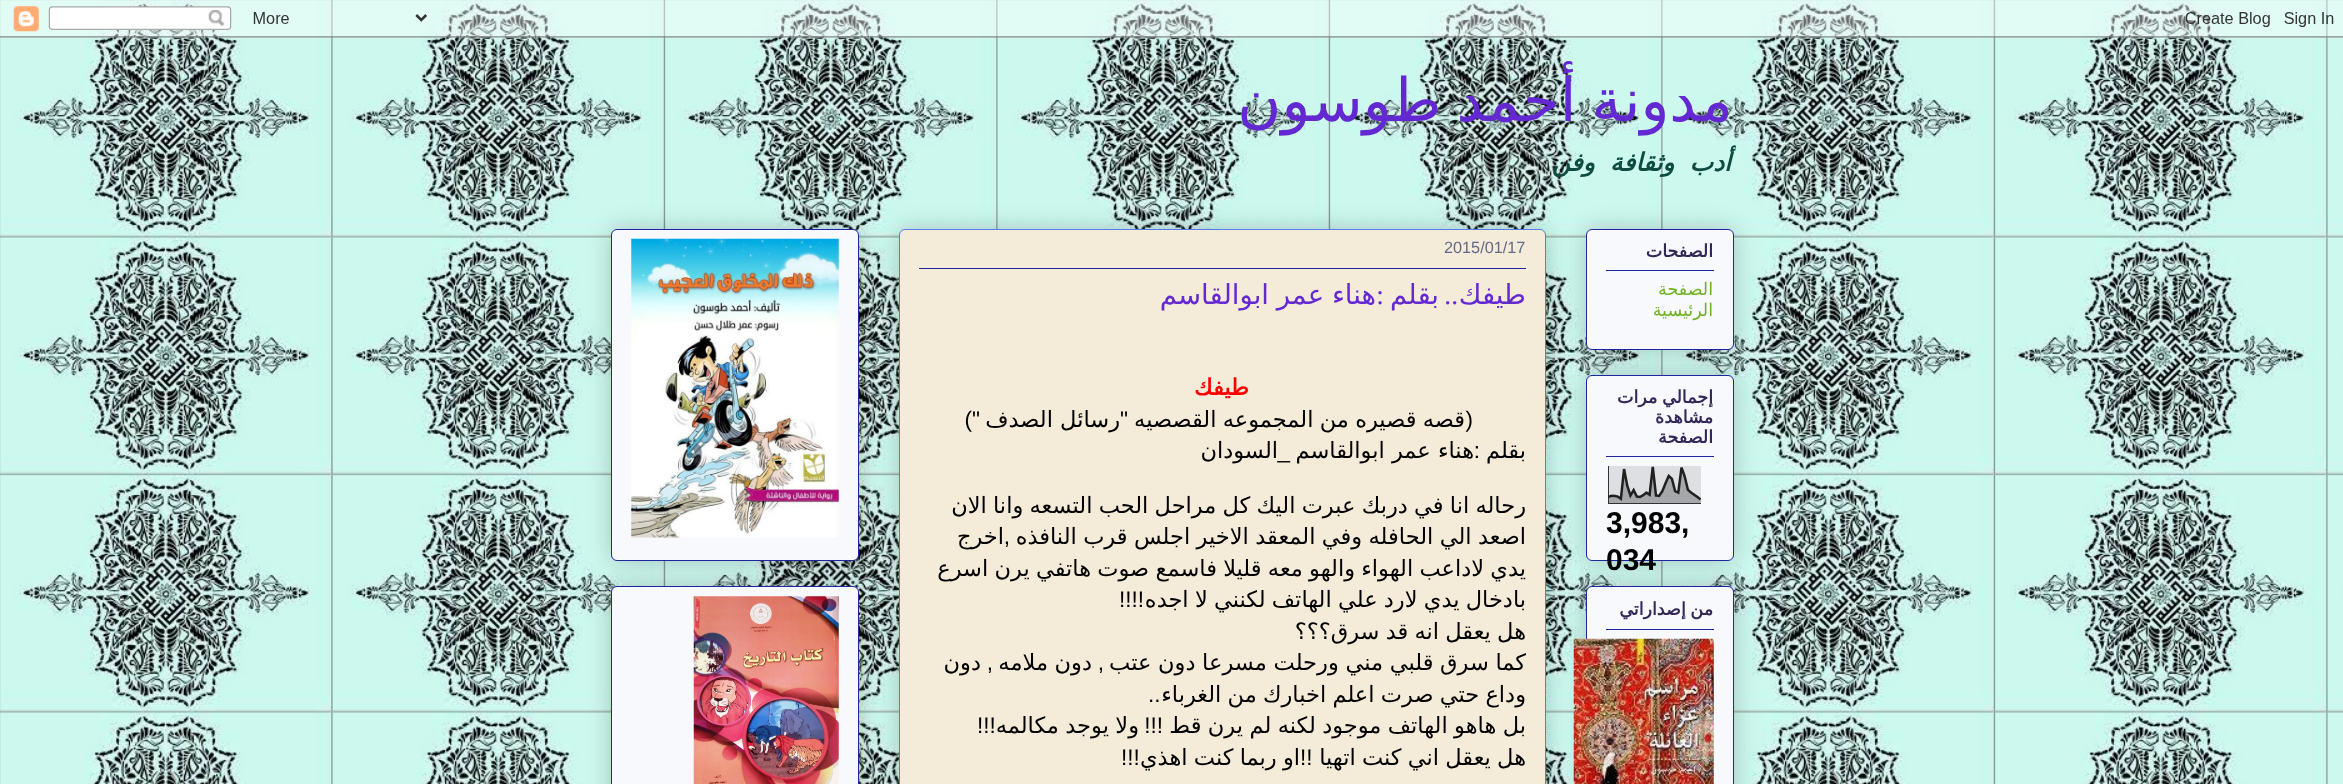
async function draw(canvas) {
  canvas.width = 2343
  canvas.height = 784
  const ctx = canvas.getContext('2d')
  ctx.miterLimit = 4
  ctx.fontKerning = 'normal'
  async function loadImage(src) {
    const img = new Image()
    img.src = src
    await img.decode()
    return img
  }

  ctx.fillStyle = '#fff'
  ctx.fillRect(0, 0, 2343, 784)
  ctx.drawImage(await loadImage('image0.png'), 0, 0, 2343, 784)
  ctx.drawImage(await loadImage('image1.png'), 0, 0, 2343, 38)
  ctx.save()
  ctx.beginPath()
  ctx.rect(611, 38, 1123, 153)
  ctx.clip()
  ctx.wordSpacing = '-4px'
  ctx.direction = 'rtl'
  ctx.font = '60px DejaVu Sans'
  ctx.fillStyle = '#6428d2'
  ctx.fillText('مدونة أحمد طوسون', 1733, 121)
  ctx.restore()
  ctx.wordSpacing = '7px'
  ctx.direction = 'rtl'
  ctx.font = 'italic bold 25px DejaVu Sans'
  ctx.fillStyle = '#0e4b41'
  ctx.fillText('أدب وثقافة وفن', 1731, 171)
  ctx.fillStyle = '#00000033'
  ctx.filter = 'blur(12.5px)'
  ctx.beginPath()
  ctx.roundRect(1586, 229, 148, 121, 6)
  ctx.fill()
  ctx.filter = 'none'
  ctx.fillStyle = '#f7f9fd'
  ctx.beginPath()
  ctx.roundRect(1586.5, 229.5, 147, 120, 5.5)
  ctx.fill()
  ctx.strokeStyle = '#1f269f'
  ctx.stroke()
  ctx.wordSpacing = '0px'
  ctx.font = 'bold 17.5px DejaVu Sans'
  ctx.fillStyle = '#342859'
  ctx.fillText('الصفحات', 1713, 257)
  ctx.fillStyle = '#1f269f'
  ctx.fillRect(1606, 270, 108, 1)
  ctx.font = '17.5px DejaVu Sans'
  ctx.fillStyle = '#71b223'
  ctx.fillText('الصفحة', 1713, 295)
  ctx.fillText('الرئيسية', 1713, 316)
  ctx.fillStyle = '#00000033'
  ctx.filter = 'blur(12.5px)'
  ctx.beginPath()
  ctx.roundRect(1586, 375, 148, 186, 6)
  ctx.fill()
  ctx.filter = 'none'
  ctx.fillStyle = '#f7f9fd'
  ctx.beginPath()
  ctx.roundRect(1586.5, 375.5, 147, 185, 5.5)
  ctx.fill()
  ctx.stroke()
  ctx.wordSpacing = '-1px'
  ctx.font = 'bold 17.5px DejaVu Sans'
  ctx.fillStyle = '#342859'
  ctx.fillText('إجمالي مرات', 1713, 403)
  ctx.wordSpacing = '0px'
  ctx.fillText('مشاهدة', 1713, 423)
  ctx.fillText('الصفحة', 1713, 443)
  ctx.fillStyle = '#1f269f'
  ctx.fillRect(1606, 456, 108, 1)
  ctx.drawImage(await loadImage('image2.png'), 1608, 466, 93, 38)
  ctx.direction = 'ltr'
  ctx.font = 'bold 30px Liberation Sans'
  ctx.fillStyle = '#000'
  ctx.fillText('3,983,', 1606, 533)
  ctx.fillText('034', 1606, 570)
  ctx.fillStyle = '#00000033'
  ctx.filter = 'blur(12.5px)'
  ctx.beginPath()
  ctx.roundRect(1586, 586, 148, 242, 6)
  ctx.fill()
  ctx.filter = 'none'
  ctx.fillStyle = '#f7f9fd'
  ctx.beginPath()
  ctx.roundRect(1586.5, 586.5, 147, 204, 5.5)
  ctx.fill()
  ctx.stroke()
  ctx.wordSpacing = '-1px'
  ctx.direction = 'rtl'
  ctx.font = 'bold 17.5px DejaVu Sans'
  ctx.fillStyle = '#342859'
  ctx.fillText('من إصداراتي', 1713, 615)
  ctx.fillStyle = '#1f269f'
  ctx.fillRect(1606, 629, 108, 1)
  ctx.fillStyle = '#00000033'
  ctx.filter = 'blur(12.5px)'
  ctx.beginPath()
  ctx.roundRect(899, 229, 647, 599, 6)
  ctx.fill()
  ctx.filter = 'none'
  ctx.drawImage(await loadImage('image3.png'), 1573, 638, 141, 146)
  ctx.fillStyle = '#f4ebd9'
  ctx.beginPath()
  ctx.roundRect(899.5, 229.5, 646, 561, 5.5)
  ctx.fill()
  ctx.strokeStyle = '#577be9'
  ctx.stroke()
  ctx.wordSpacing = '0px'
  ctx.direction = 'ltr'
  ctx.font = '16.25px Liberation Sans'
  ctx.fillStyle = '#636a87'
  ctx.fillText('2015/01/17', 1444, 253)
  ctx.fillStyle = '#1f269f'
  ctx.fillRect(919, 268, 607, 1)
  ctx.direction = 'rtl'
  ctx.font = '27.5px DejaVu Sans'
  ctx.fillStyle = '#6428d2'
  ctx.fillText('طيفك', 1526, 304)
  ctx.font = '27.5px Liberation Serif'
  ctx.fillText('..', 1458, 304)
  ctx.font = '27.5px DejaVu Sans'
  ctx.fillText('بقلم', 1439, 304)
  ctx.font = '27.5px Liberation Serif'
  ctx.fillText(':', 1384, 304)
  ctx.wordSpacing = '-1px'
  ctx.font = '27.5px DejaVu Sans'
  ctx.fillText('هناء عمر ابوالقاسم', 1376, 304)
  ctx.wordSpacing = '0px'
  ctx.font = 'bold 22.5px DejaVu Sans'
  ctx.fillStyle = '#f00'
  ctx.fillText('طيفك', 1249, 395)
  ctx.wordSpacing = '-0.9px'
  ctx.font = '22.5px DejaVu Sans'
  ctx.fillStyle = '#000'
  ctx.fillText('قصه قصيره من المجموعه القصصيه', 1465, 427)
  ctx.wordSpacing = '0px'
  ctx.font = '22.5px Liberation Sans'
  ctx.fillText('(', 1473, 427)
  ctx.fillText('"', 1128, 427)
  ctx.font = '22.5px DejaVu Sans'
  ctx.fillText('رسائل الصدف', 1120, 427)
  ctx.font = '22.5px Liberation Sans'
  ctx.fillText('")', 980, 427)
  ctx.font = '22.5px DejaVu Sans'
  ctx.fillText('بقلم', 1526, 458)
  ctx.font = '22.5px Liberation Sans'
  ctx.fillText(':', 1480, 458)
  ctx.font = '22.5px DejaVu Sans'
  ctx.fillText('هناء عمر ابوالقاسم', 1474, 458)
  ctx.fillText('السودان', 1278, 458)
  ctx.font = '22.5px Liberation Sans'
  ctx.fillText('_', 1290, 458)
  ctx.wordSpacing = '-0.9px'
  ctx.font = '22.5px DejaVu Sans'
  ctx.fillText('رحاله انا في دربك عبرت اليك كل مراحل الحب التسعه وانا الان', 1526, 513)
  ctx.wordSpacing = '-0.75px'
  ctx.fillText('اصعد الي الحافله وفي المعقد الاخير اجلس قرب النافذه', 1526, 544)
  ctx.wordSpacing = '0px'
  ctx.font = '22.5px Liberation Sans'
  ctx.fillText(',', 1010, 544)
  ctx.font = '22.5px DejaVu Sans'
  ctx.fillText('اخرج', 1004, 544)
  ctx.wordSpacing = '-0.9px'
  ctx.fillText('يدي لاداعب الهواء والهو معه قليلا فاسمع صوت هاتفي يرن اسرع', 1526, 576)
  ctx.fillText('بادخال يدي لارد علي الهاتف لكنني لا اجده', 1526, 607)
  ctx.wordSpacing = '0px'
  ctx.direction = 'ltr'
  ctx.font = '22.5px Liberation Sans'
  ctx.fillText('!!!!', 1119, 607)
  ctx.wordSpacing = '-0.9px'
  ctx.direction = 'rtl'
  ctx.font = '22.5px DejaVu Sans'
  ctx.fillText('هل يعقل انه قد سرق؟؟؟', 1526, 639)
  ctx.wordSpacing = '-0.5px'
  ctx.fillText('كما سرق قلبي مني ورحلت مسرعا دون عتب', 1526, 670)
  ctx.wordSpacing = '0px'
  ctx.font = '22.5px Liberation Sans'
  ctx.fillText(',', 1104, 670)
  ctx.wordSpacing = '-0.5px'
  ctx.font = '22.5px DejaVu Sans'
  ctx.fillText('دون ملامه', 1092, 670)
  ctx.wordSpacing = '0px'
  ctx.font = '22.5px Liberation Sans'
  ctx.fillText(',', 993, 670)
  ctx.font = '22.5px DejaVu Sans'
  ctx.fillText('دون', 981, 670)
  ctx.wordSpacing = '-0.9px'
  ctx.fillText('وداع حتي صرت اعلم اخبارك من الغرباء', 1526, 702)
  ctx.wordSpacing = '0px'
  ctx.direction = 'ltr'
  ctx.font = '22.5px Liberation Sans'
  ctx.fillText('..', 1148, 702)
  ctx.wordSpacing = '-0.75px'
  ctx.direction = 'rtl'
  ctx.font = '22.5px DejaVu Sans'
  ctx.fillText('بل هاهو الهاتف موجود لكنه لم يرن قط', 1526, 733)
  ctx.wordSpacing = '0px'
  ctx.font = '22.5px Liberation Sans'
  ctx.fillText('!!!', 1163, 733)
  ctx.wordSpacing = '-0.75px'
  ctx.font = '22.5px DejaVu Sans'
  ctx.fillText('ولا يوجد مكالمه', 1139, 733)
  ctx.wordSpacing = '0px'
  ctx.direction = 'ltr'
  ctx.font = '22.5px Liberation Sans'
  ctx.fillText('!!!', 977, 733)
  ctx.wordSpacing = '-0.9px'
  ctx.direction = 'rtl'
  ctx.font = '22.5px DejaVu Sans'
  ctx.fillText('هل يعقل اني كنت اتهيا', 1526, 765)
  ctx.wordSpacing = '0px'
  ctx.direction = 'ltr'
  ctx.font = '22.5px Liberation Sans'
  ctx.fillText('!!', 1300, 765)
  ctx.wordSpacing = '-0.9px'
  ctx.direction = 'rtl'
  ctx.font = '22.5px DejaVu Sans'
  ctx.fillText('او ربما كنت اهذي', 1300, 765)
  ctx.wordSpacing = '0px'
  ctx.direction = 'ltr'
  ctx.font = '22.5px Liberation Sans'
  ctx.fillText('!!!', 1121, 765)
  ctx.fillStyle = '#00000033'
  ctx.filter = 'blur(12.5px)'
  ctx.beginPath()
  ctx.roundRect(611, 229, 248, 332, 6)
  ctx.fill()
  ctx.filter = 'none'
  ctx.fillStyle = '#f7f9fd'
  ctx.beginPath()
  ctx.roundRect(611.5, 229.5, 247, 331, 5.5)
  ctx.fill()
  ctx.strokeStyle = '#1f269f'
  ctx.stroke()
  ctx.drawImage(await loadImage('image4.png'), 631, 238, 208, 300)
  ctx.fillStyle = '#00000033'
  ctx.filter = 'blur(12.5px)'
  ctx.beginPath()
  ctx.roundRect(611, 586, 248, 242, 6)
  ctx.fill()
  ctx.filter = 'none'
  ctx.fillStyle = '#f7f9fd'
  ctx.beginPath()
  ctx.roundRect(611.5, 586.5, 247, 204, 5.5)
  ctx.fill()
  ctx.stroke()
  ctx.drawImage(await loadImage('image5.png'), 693, 596, 146, 188)
}

draw(document.querySelector('canvas'))
